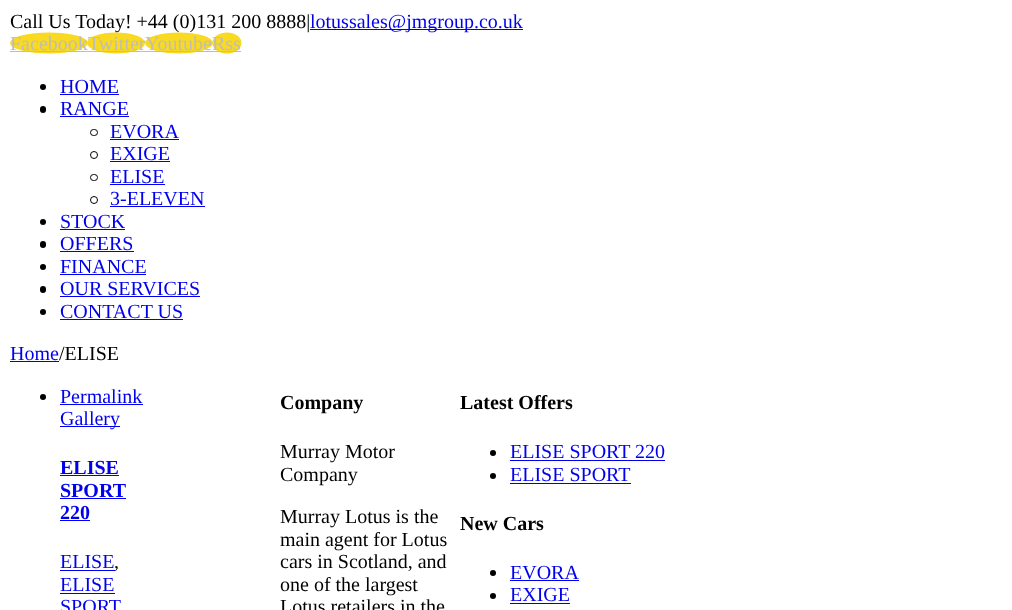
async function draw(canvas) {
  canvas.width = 1012
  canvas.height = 610
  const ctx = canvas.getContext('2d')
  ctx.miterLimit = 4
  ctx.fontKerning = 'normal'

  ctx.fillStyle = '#fff'
  ctx.fillRect(0, 0, 1012, 610)
  ctx.font = '20px Liberation Serif'
  ctx.fillStyle = '#000'
  ctx.fillText('Call Us Today! +44 (0)131 200 8888|', 10, 28)
  ctx.fillStyle = '#00e'
  ctx.fillRect(310, 29, 213, 1)
  ctx.fillText('lotussales@jmgroup.co.uk', 310, 28)
  ctx.fillStyle = '#f9da20'
  ctx.beginPath()
  ctx.ellipse(49, 43, 39, 10.5, 0, 0, 2 * Math.PI)
  ctx.fill()
  ctx.fillStyle = '#bebdbd'
  ctx.fillText('Facebook', 10, 50)
  ctx.fillRect(10, 51, 78, 1)
  ctx.fillStyle = '#f9da20'
  ctx.beginPath()
  ctx.ellipse(116, 43, 29, 10.5, 0, 0, 2 * Math.PI)
  ctx.fill()
  ctx.fillStyle = '#bebdbd'
  ctx.fillText('Twitter', 88, 50)
  ctx.fillRect(88, 51, 57, 1)
  ctx.fillStyle = '#f9da20'
  ctx.beginPath()
  ctx.ellipse(179, 43, 34, 10.5, 0, 0, 2 * Math.PI)
  ctx.fill()
  ctx.fillStyle = '#bebdbd'
  ctx.fillText('Youtube', 145, 50)
  ctx.fillRect(145, 51, 68, 1)
  ctx.fillStyle = '#f9da20'
  ctx.beginPath()
  ctx.ellipse(227, 43, 14.5, 10.5, 0, 0, 2 * Math.PI)
  ctx.fill()
  ctx.fillStyle = '#bebdbd'
  ctx.fillText('Rss', 212, 50)
  ctx.fillRect(213, 51, 28, 1)
  ctx.fillStyle = '#000'
  ctx.beginPath()
  ctx.arc(43, 87, 3, 0, 2 * Math.PI)
  ctx.fill()
  ctx.fillStyle = '#00e'
  ctx.fillText('HOME', 60, 93)
  ctx.fillRect(60, 94, 59, 1)
  ctx.fillStyle = '#000'
  ctx.beginPath()
  ctx.roundRect(40, 106, 6, 7, 3)
  ctx.fill()
  ctx.fillStyle = '#00e'
  ctx.fillText('RANGE', 60, 115)
  ctx.fillRect(60, 116, 69, 1)
  ctx.beginPath()
  ctx.roundRect(90.5, 129.5, 7, 6, 3)
  ctx.strokeStyle = '#000'
  ctx.stroke()
  ctx.fillText('EVORA', 110, 138)
  ctx.fillRect(110, 139, 69, 1)
  ctx.beginPath()
  ctx.arc(94, 155, 3.5, 0, 2 * Math.PI)
  ctx.stroke()
  ctx.fillText('EXIGE', 110, 160)
  ctx.fillRect(110, 161, 60, 1)
  ctx.beginPath()
  ctx.roundRect(90.5, 174.5, 7, 6, 3)
  ctx.stroke()
  ctx.fillText('ELISE', 110, 183)
  ctx.fillRect(110, 184, 55, 1)
  ctx.beginPath()
  ctx.arc(94, 200, 3.5, 0, 2 * Math.PI)
  ctx.stroke()
  ctx.fillText('3-ELEVEN', 110, 205)
  ctx.fillRect(110, 206, 95, 1)
  ctx.fillStyle = '#000'
  ctx.beginPath()
  ctx.arc(43, 222, 3, 0, 2 * Math.PI)
  ctx.fill()
  ctx.fillStyle = '#00e'
  ctx.fillText('STOCK', 60, 228)
  ctx.fillRect(60, 229, 65, 1)
  ctx.fillStyle = '#000'
  ctx.beginPath()
  ctx.roundRect(40, 241, 6, 7, 3)
  ctx.fill()
  ctx.fillStyle = '#00e'
  ctx.fillText('OFFERS', 60, 250)
  ctx.fillRect(60, 251, 74, 1)
  ctx.fillStyle = '#000'
  ctx.beginPath()
  ctx.arc(43, 267, 3, 0, 2 * Math.PI)
  ctx.fill()
  ctx.fillStyle = '#00e'
  ctx.fillText('FINANCE', 60, 273)
  ctx.fillRect(60, 274, 86, 1)
  ctx.fillStyle = '#000'
  ctx.beginPath()
  ctx.roundRect(40, 286, 6, 7, 3)
  ctx.fill()
  ctx.fillStyle = '#00e'
  ctx.fillText('OUR SERVICES', 60, 295)
  ctx.fillRect(60, 296, 140, 1)
  ctx.fillStyle = '#000'
  ctx.beginPath()
  ctx.arc(43, 312, 3, 0, 2 * Math.PI)
  ctx.fill()
  ctx.fillStyle = '#00e'
  ctx.fillText('CONTACT US', 60, 318)
  ctx.fillRect(60, 319, 123, 1)
  ctx.fillText('Home', 10, 360)
  ctx.fillRect(10, 361, 49, 1)
  ctx.fillStyle = '#000'
  ctx.fillText('/ELISE', 59, 360)
  ctx.beginPath()
  ctx.arc(43, 397, 3, 0, 2 * Math.PI)
  ctx.fill()
  ctx.fillStyle = '#00e'
  ctx.fillText('Permalink', 60, 403)
  ctx.fillRect(60, 404, 83, 1)
  ctx.fillRect(60, 426, 60, 1)
  ctx.fillText('Gallery', 60, 425)
  ctx.font = 'bold 20px Liberation Serif'
  ctx.fillText('ELISE', 60, 474)
  ctx.fillRect(60, 475, 59, 1)
  ctx.fillText('SPORT', 60, 497)
  ctx.fillRect(60, 498, 66, 1)
  ctx.fillText('220', 60, 519)
  ctx.fillRect(60, 520, 30, 1)
  ctx.font = '20px Liberation Serif'
  ctx.fillText('ELISE', 60, 568)
  ctx.fillRect(60, 570, 55, 1)
  ctx.fillStyle = '#000'
  ctx.fillText(',', 114, 568)
  ctx.fillStyle = '#00e'
  ctx.fillText('ELISE', 60, 591)
  ctx.fillRect(60, 593, 55, 1)
  ctx.fillText('SPORT', 60, 613)
  ctx.font = 'bold 20px Liberation Serif'
  ctx.fillStyle = '#000'
  ctx.fillText('Latest Offers', 460, 409)
  ctx.beginPath()
  ctx.arc(493, 453, 3, 0, 2 * Math.PI)
  ctx.fill()
  ctx.font = '20px Liberation Serif'
  ctx.fillStyle = '#00e'
  ctx.fillText('ELISE SPORT 220', 510, 458)
  ctx.fillRect(510, 460, 155, 1)
  ctx.fillStyle = '#000'
  ctx.beginPath()
  ctx.arc(493, 476, 3, 0, 2 * Math.PI)
  ctx.fill()
  ctx.fillStyle = '#00e'
  ctx.fillText('ELISE SPORT', 510, 481)
  ctx.fillRect(510, 483, 121, 1)
  ctx.font = 'bold 20px Liberation Serif'
  ctx.fillStyle = '#000'
  ctx.fillText('New Cars', 460, 530)
  ctx.beginPath()
  ctx.arc(493, 573, 3, 0, 2 * Math.PI)
  ctx.fill()
  ctx.font = '20px Liberation Serif'
  ctx.fillStyle = '#00e'
  ctx.fillText('EVORA', 510, 579)
  ctx.fillRect(510, 580, 69, 1)
  ctx.fillStyle = '#000'
  ctx.beginPath()
  ctx.arc(493, 596, 3, 0, 2 * Math.PI)
  ctx.fill()
  ctx.fillStyle = '#00e'
  ctx.fillText('EXIGE', 510, 601)
  ctx.fillRect(510, 603, 60, 1)
  ctx.font = 'bold 20px Liberation Serif'
  ctx.fillStyle = '#000'
  ctx.fillText('Company', 280, 409)
  ctx.font = '20px Liberation Serif'
  ctx.fillText('Murray Motor', 280, 458)
  ctx.fillText('Company', 280, 481)
  ctx.fillText('Murray Lotus is the', 280, 523)
  ctx.fillText('main agent for Lotus', 280, 546)
  ctx.fillText('cars in Scotland, and', 280, 568)
  ctx.fillText('one of the largest', 280, 591)
  ctx.fillText('Lotus retailers in the', 280, 613)
}

draw(document.querySelector('canvas'))
